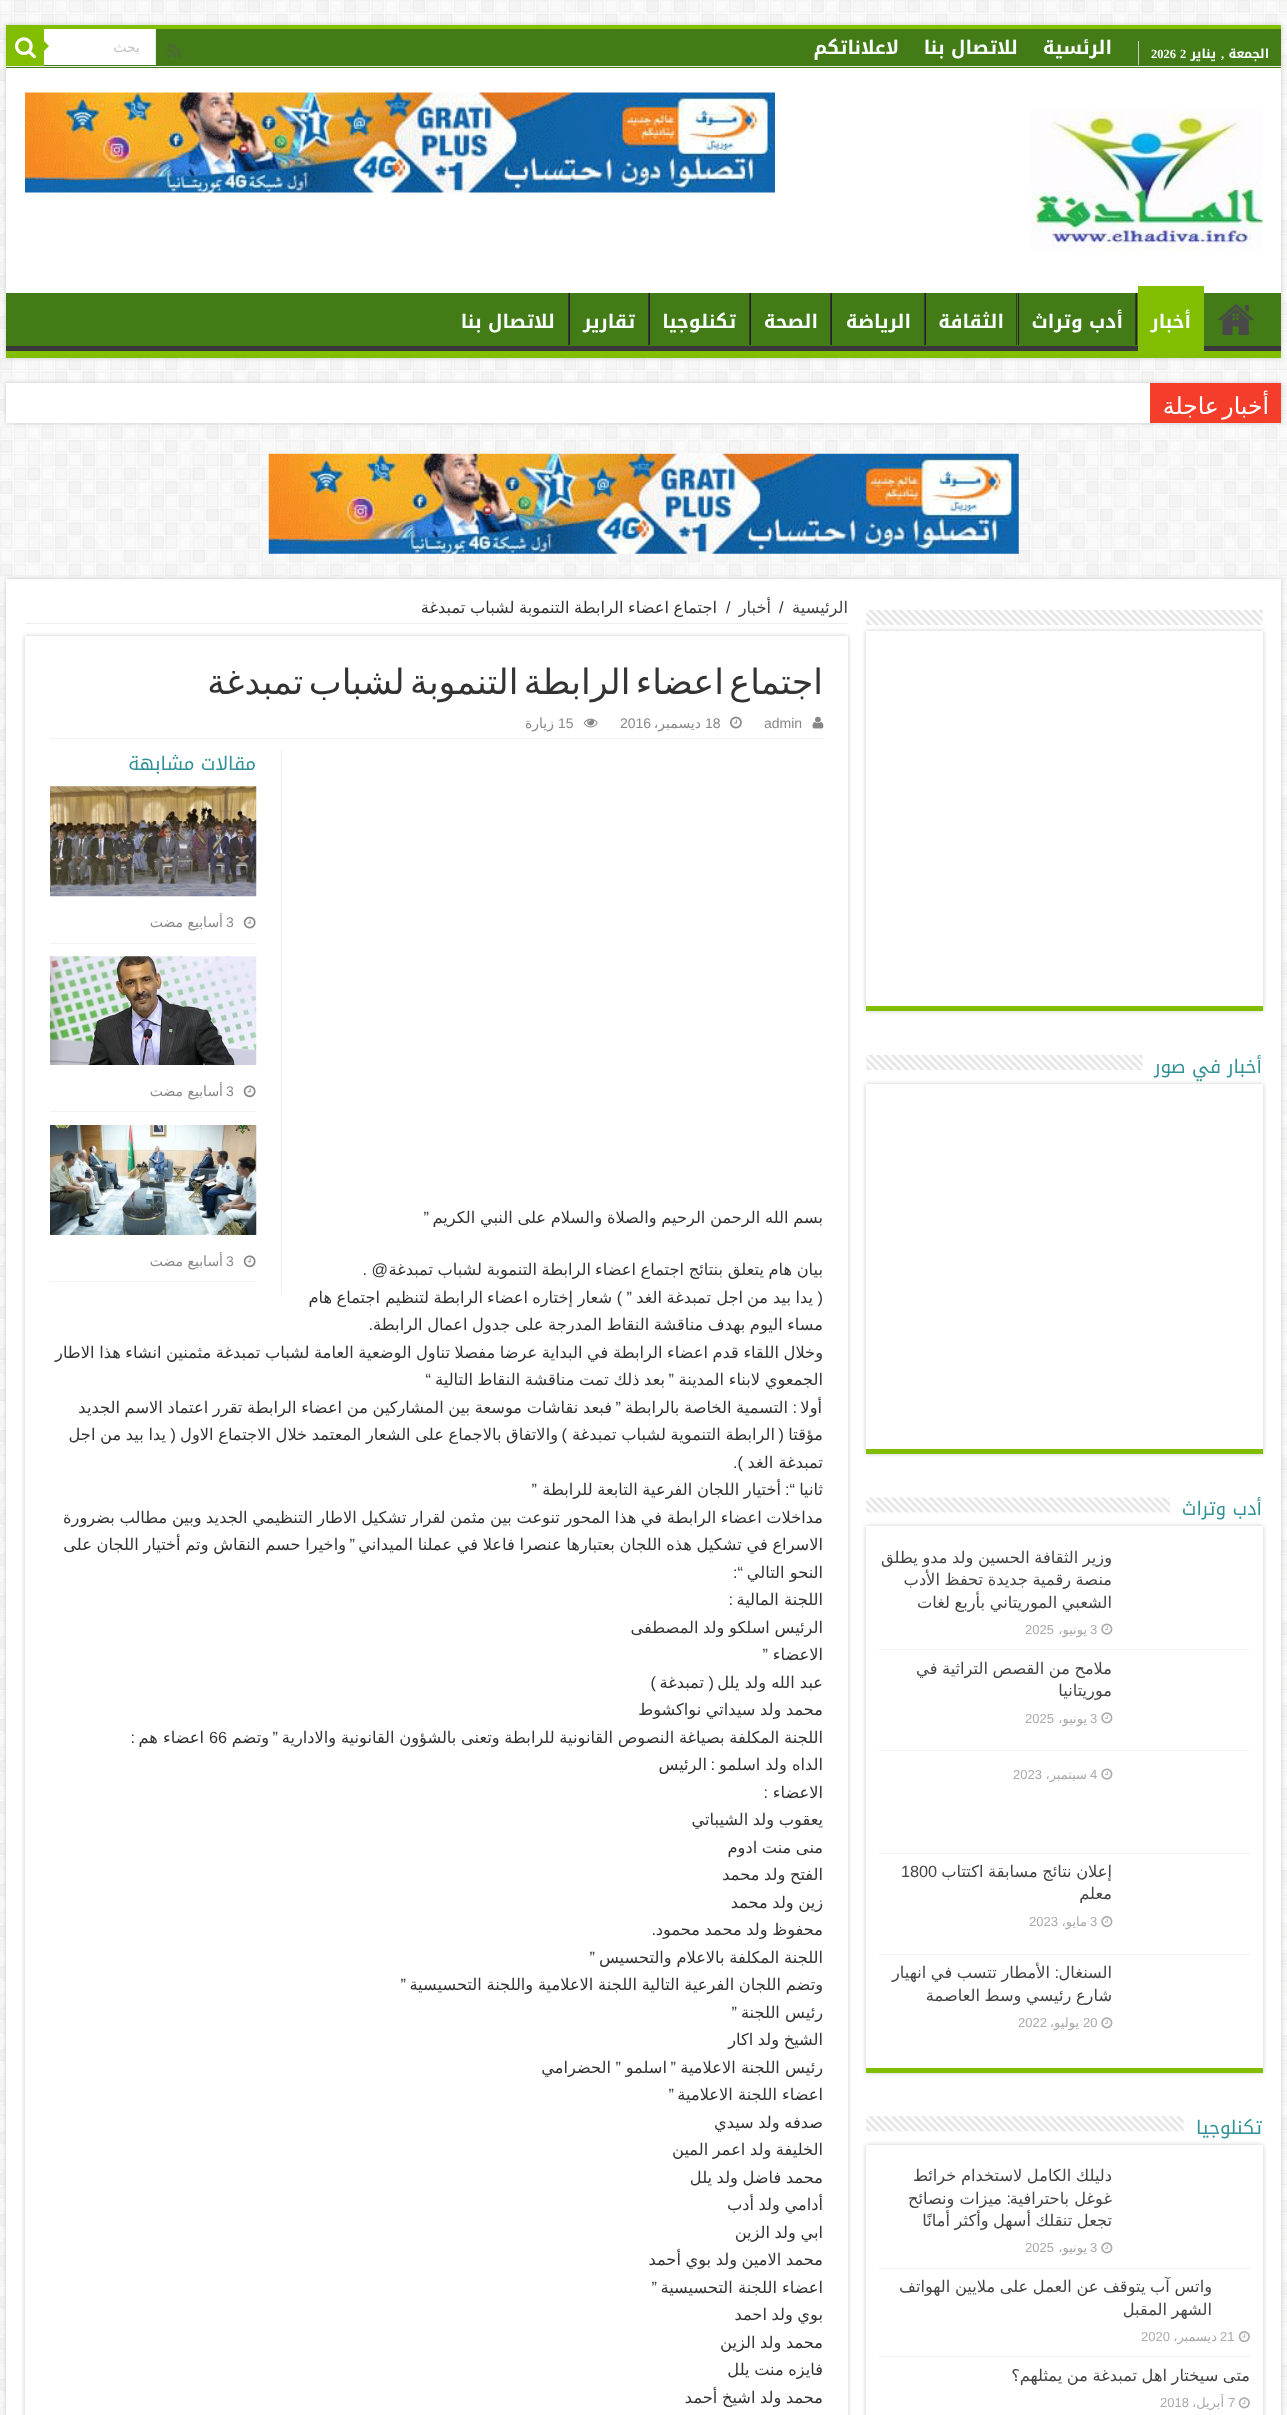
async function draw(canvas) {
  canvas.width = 1287
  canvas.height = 2415
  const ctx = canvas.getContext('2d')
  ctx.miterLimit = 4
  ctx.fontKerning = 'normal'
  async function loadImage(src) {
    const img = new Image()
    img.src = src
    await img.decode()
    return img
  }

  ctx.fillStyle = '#fff'
  ctx.fillRect(0, 0, 1287, 2415)
  ctx.drawImage(await loadImage('image0.png'), 0, 0, 1287, 2415)
  ctx.fillStyle = '#cacaca'
  ctx.filter = 'blur(2px)'
  ctx.beginPath()
  ctx.rect(6, 25, 1275, 333)
  ctx.fill()
  ctx.filter = 'none'
  ctx.fillStyle = '#fff'
  ctx.fillRect(6, 68, 1275, 225)
  ctx.fillStyle = '#81bd00'
  ctx.fillRect(6, 25, 1275, 4)
  ctx.fillStyle = '#437c17'
  ctx.fillRect(6, 29, 1275, 39)
  ctx.fillStyle = '#ececec'
  ctx.fillRect(6, 66, 1275, 1)
  ctx.fillStyle = '#ccc'
  ctx.fillRect(1138, 41, 1, 24)
  ctx.direction = 'rtl'
  ctx.font = 'bold 12.5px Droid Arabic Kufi'
  ctx.fillStyle = '#faffff'
  ctx.fillText('الجمعة', 1269, 58)
  ctx.font = 'bold 12.5px Liberation Serif'
  ctx.fillText(',', 1224, 58)
  ctx.font = 'bold 12.5px Droid Arabic Kufi'
  ctx.fillText('يناير', 1216, 58)
  ctx.direction = 'ltr'
  ctx.font = 'bold 12.5px Liberation Serif'
  ctx.fillText('2', 1180, 58)
  ctx.fillText('2026', 1151, 58)
  ctx.direction = 'rtl'
  ctx.font = 'bold 18.75px Droid Arabic Kufi'
  ctx.fillText('الرئسية', 1112, 54)
  ctx.fillText('للاتصال بنا', 1018, 54)
  ctx.fillText('لاعلاناتكم', 899, 54)
  ctx.drawImage(await loadImage('image1.png'), 167, 43, 15, 15)
  ctx.fillStyle = '#fff'
  ctx.fillRect(44, 29, 111, 36)
  ctx.fillStyle = '#ececec'
  ctx.fillRect(155, 29, 1, 36)
  ctx.font = '14px DejaVu Sans'
  ctx.fillStyle = '#c5c5c5'
  ctx.fillText('بحث', 140, 52)
  ctx.fillStyle = '#81bd00'
  ctx.fillRect(6, 29, 38, 37)
  ctx.drawImage(await loadImage('image2.png'), 15, 37, 21, 22)
  ctx.beginPath()
  ctx.moveTo(44, 51)
  ctx.lineTo(44, 41)
  ctx.lineTo(49, 46)
  ctx.closePath()
  ctx.fill()
  ctx.drawImage(await loadImage('image3.png'), 1031, 111, 232, 138)
  ctx.drawImage(await loadImage('image4.png'), 25, 92, 750, 101)
  ctx.fillStyle = '#437c17'
  ctx.fillRect(6, 293, 1275, 53)
  ctx.save()
  ctx.beginPath()
  ctx.rect(6, 293, 1275, 58)
  ctx.clip()
  ctx.fillStyle = '#393939'
  ctx.beginPath()
  ctx.moveTo(-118, 169)
  ctx.lineTo(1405, 169)
  ctx.lineTo(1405, 475)
  ctx.lineTo(-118, 475)
  ctx.closePath()
  ctx.moveTo(5, 285)
  ctx.lineTo(1280, 285)
  ctx.bezierCurveTo(1281, 285, 1281, 286, 1281, 286)
  ctx.lineTo(1281, 345)
  ctx.bezierCurveTo(1281, 346, 1281, 346, 1280, 346)
  ctx.lineTo(5, 346)
  ctx.bezierCurveTo(4, 346, 4, 346, 4, 345)
  ctx.lineTo(4, 286)
  ctx.bezierCurveTo(4, 286, 4, 285, 5, 285)
  ctx.closePath()
  ctx.fill('evenodd')
  ctx.restore()
  ctx.fillStyle = '#81bd00'
  ctx.fillRect(6, 351, 1275, 7)
  ctx.drawImage(await loadImage('image5.png'), 1217, 303, 37, 32)
  ctx.fillRect(1138, 286, 66, 65)
  ctx.font = 'bold 18.75px Droid Arabic Kufi'
  ctx.fillStyle = '#faffff'
  ctx.fillText('أخبار', 1191, 328)
  ctx.fillStyle = '#222'
  ctx.fillRect(1136, 293, 1, 52)
  ctx.fillStyle = '#383838'
  ctx.fillRect(1135, 293, 1, 52)
  ctx.fillStyle = '#faffff'
  ctx.fillText('أدب وتراث', 1123, 328)
  ctx.fillStyle = '#222'
  ctx.fillRect(1018, 293, 1, 52)
  ctx.fillStyle = '#383838'
  ctx.fillRect(1016, 293, 1, 52)
  ctx.fillStyle = '#faffff'
  ctx.fillText('الثقافة', 1004, 328)
  ctx.fillStyle = '#222'
  ctx.fillRect(925, 293, 1, 52)
  ctx.fillStyle = '#383838'
  ctx.fillRect(924, 293, 1, 52)
  ctx.fillStyle = '#faffff'
  ctx.fillText('الرياضة', 911, 328)
  ctx.fillStyle = '#222'
  ctx.fillRect(831, 293, 1, 52)
  ctx.fillStyle = '#383838'
  ctx.fillRect(830, 293, 1, 52)
  ctx.fillStyle = '#faffff'
  ctx.fillText('الصحة', 818, 328)
  ctx.fillStyle = '#222'
  ctx.fillRect(750, 293, 1, 52)
  ctx.fillStyle = '#383838'
  ctx.fillRect(749, 293, 1, 52)
  ctx.fillStyle = '#faffff'
  ctx.fillText('تكنلوجيا', 736, 328)
  ctx.fillStyle = '#222'
  ctx.fillRect(649, 293, 1, 52)
  ctx.fillStyle = '#383838'
  ctx.fillRect(648, 293, 1, 52)
  ctx.fillStyle = '#faffff'
  ctx.fillText('تقارير', 635, 328)
  ctx.fillStyle = '#222'
  ctx.fillRect(569, 293, 1, 52)
  ctx.fillStyle = '#383838'
  ctx.fillRect(568, 293, 1, 52)
  ctx.fillStyle = '#faffff'
  ctx.fillText('للاتصال بنا', 555, 328)
  ctx.fillStyle = '#cacaca'
  ctx.filter = 'blur(2px)'
  ctx.beginPath()
  ctx.rect(6, 383, 1275, 40)
  ctx.fill()
  ctx.filter = 'none'
  ctx.fillStyle = '#fff'
  ctx.fillRect(6, 383, 1144, 40)
  ctx.fillStyle = '#f43d2a'
  ctx.fillRect(1150, 383, 131, 40)
  ctx.wordSpacing = '-4px'
  ctx.font = '23.5px DejaVu Sans'
  ctx.fillStyle = '#faffff'
  ctx.fillText('أخبار عاجلة', 1269, 414)
  ctx.drawImage(await loadImage('image6.png'), 268, 453, 751, 101)
  ctx.fillStyle = '#cacaca'
  ctx.filter = 'blur(2px)'
  ctx.beginPath()
  ctx.rect(6, 579, 1275, 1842)
  ctx.fill()
  ctx.filter = 'none'
  ctx.fillStyle = '#fff'
  ctx.fillRect(6, 579, 1275, 1836)
  ctx.fillStyle = '#cacaca'
  ctx.filter = 'blur(2px)'
  ctx.beginPath()
  ctx.rect(866, 631, 397, 380)
  ctx.fill()
  ctx.filter = 'none'
  ctx.drawImage(await loadImage('image7.png'), 866, 610, 397, 15)
  ctx.fillStyle = '#fff'
  ctx.fillRect(866, 631, 397, 375)
  ctx.fillStyle = '#81bd00'
  ctx.fillRect(866, 1006, 397, 5)
  ctx.fillStyle = '#cacaca'
  ctx.filter = 'blur(2px)'
  ctx.beginPath()
  ctx.rect(866, 1084, 397, 370)
  ctx.fill()
  ctx.filter = 'none'
  ctx.wordSpacing = '0px'
  ctx.font = '18.75px Droid Arabic Kufi'
  ctx.fillStyle = '#319196'
  ctx.fillText('أخبار في صور', 1262, 1073)
  ctx.drawImage(await loadImage('image8.png'), 866, 1055, 277, 15)
  ctx.fillStyle = '#fff'
  ctx.fillRect(866, 1084, 397, 365)
  ctx.fillStyle = '#81bd00'
  ctx.fillRect(866, 1449, 397, 5)
  ctx.fillStyle = '#cacaca'
  ctx.filter = 'blur(2px)'
  ctx.beginPath()
  ctx.rect(866, 1526, 397, 547)
  ctx.fill()
  ctx.filter = 'none'
  ctx.fillStyle = '#319196'
  ctx.fillText('أدب وتراث', 1262, 1515)
  ctx.drawImage(await loadImage('image9.png'), 866, 1497, 304, 16)
  ctx.fillStyle = '#fff'
  ctx.fillRect(866, 1526, 397, 542)
  ctx.fillStyle = '#81bd00'
  ctx.fillRect(866, 2068, 397, 5)
  ctx.fillStyle = '#f2f2f2'
  ctx.fillRect(879, 1649, 371, 1)
  ctx.wordSpacing = '-0.6px'
  ctx.font = '16.25px DejaVu Sans'
  ctx.fillStyle = '#444'
  ctx.fillText('وزير الثقافة الحسين ولد مدو يطلق', 1112, 1563)
  ctx.fillText('منصة رقمية جديدة تحفظ الأدب', 1112, 1585)
  ctx.fillText('الشعبي الموريتاني بأربع لغات', 1112, 1608)
  ctx.drawImage(await loadImage('image10.png'), 1101, 1623, 12, 12)
  ctx.wordSpacing = '0px'
  ctx.direction = 'ltr'
  ctx.font = '13px Liberation Sans'
  ctx.fillStyle = '#aaa'
  ctx.fillText('3', 1090, 1634)
  ctx.direction = 'rtl'
  ctx.font = '13px DejaVu Sans'
  ctx.fillText('يونيو،', 1087, 1634)
  ctx.direction = 'ltr'
  ctx.font = '13px Liberation Sans'
  ctx.fillText('2025', 1025, 1634)
  ctx.fillStyle = '#f2f2f2'
  ctx.fillRect(879, 1750, 371, 1)
  ctx.wordSpacing = '-0.6px'
  ctx.direction = 'rtl'
  ctx.font = '16.25px DejaVu Sans'
  ctx.fillStyle = '#444'
  ctx.fillText('ملامح من القصص التراثية في', 1112, 1674)
  ctx.wordSpacing = '0px'
  ctx.fillText('موريتانيا', 1112, 1696)
  ctx.drawImage(await loadImage('image11.png'), 1101, 1712, 12, 12)
  ctx.direction = 'ltr'
  ctx.font = '13px Liberation Sans'
  ctx.fillStyle = '#aaa'
  ctx.fillText('3', 1090, 1723)
  ctx.direction = 'rtl'
  ctx.font = '13px DejaVu Sans'
  ctx.fillText('يونيو،', 1087, 1723)
  ctx.direction = 'ltr'
  ctx.font = '13px Liberation Sans'
  ctx.fillText('2025', 1025, 1723)
  ctx.fillStyle = '#f2f2f2'
  ctx.fillRect(879, 1853, 371, 1)
  ctx.drawImage(await loadImage('image10.png'), 1101, 1768, 12, 12)
  ctx.fillStyle = '#aaa'
  ctx.fillText('4', 1090, 1779)
  ctx.direction = 'rtl'
  ctx.font = '13px DejaVu Sans'
  ctx.fillText('سبتمبر،', 1087, 1779)
  ctx.direction = 'ltr'
  ctx.font = '13px Liberation Sans'
  ctx.fillText('2023', 1013, 1779)
  ctx.fillStyle = '#f2f2f2'
  ctx.fillRect(879, 1954, 371, 1)
  ctx.wordSpacing = '-0.6px'
  ctx.direction = 'rtl'
  ctx.font = '16.25px DejaVu Sans'
  ctx.fillStyle = '#444'
  ctx.fillText('إعلان نتائج مسابقة اكتتاب', 1112, 1877)
  ctx.wordSpacing = '0px'
  ctx.direction = 'ltr'
  ctx.font = '16.25px Liberation Sans'
  ctx.fillText('1800', 901, 1877)
  ctx.direction = 'rtl'
  ctx.font = '16.25px DejaVu Sans'
  ctx.fillText('معلم', 1112, 1899)
  ctx.drawImage(await loadImage('image12.png'), 1101, 1916, 12, 12)
  ctx.direction = 'ltr'
  ctx.font = '13px Liberation Sans'
  ctx.fillStyle = '#aaa'
  ctx.fillText('3', 1090, 1926)
  ctx.direction = 'rtl'
  ctx.font = '13px DejaVu Sans'
  ctx.fillText('مايو،', 1087, 1926)
  ctx.direction = 'ltr'
  ctx.font = '13px Liberation Sans'
  ctx.fillText('2023', 1029, 1926)
  ctx.direction = 'rtl'
  ctx.font = '16.25px DejaVu Sans'
  ctx.fillStyle = '#444'
  ctx.fillText('السنغال', 1112, 1978)
  ctx.font = '16.25px Liberation Sans'
  ctx.fillText(':', 1059, 1978)
  ctx.wordSpacing = '-0.5px'
  ctx.font = '16.25px DejaVu Sans'
  ctx.fillText('الأمطار تتسب في انهيار', 1050, 1978)
  ctx.wordSpacing = '-0.6px'
  ctx.fillText('شارع رئيسي وسط العاصمة', 1112, 2001)
  ctx.drawImage(await loadImage('image11.png'), 1101, 2017, 12, 12)
  ctx.wordSpacing = '0px'
  ctx.direction = 'ltr'
  ctx.font = '13px Liberation Sans'
  ctx.fillStyle = '#aaa'
  ctx.fillText('20', 1083, 2027)
  ctx.direction = 'rtl'
  ctx.font = '13px DejaVu Sans'
  ctx.fillText('يوليو،', 1079, 2027)
  ctx.direction = 'ltr'
  ctx.font = '13px Liberation Sans'
  ctx.fillText('2022', 1018, 2027)
  ctx.fillStyle = '#cacaca'
  ctx.filter = 'blur(2px)'
  ctx.beginPath()
  ctx.rect(866, 2145, 397, 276)
  ctx.fill()
  ctx.filter = 'none'
  ctx.direction = 'rtl'
  ctx.font = '18.75px Droid Arabic Kufi'
  ctx.fillStyle = '#319196'
  ctx.fillText('تكنلوجيا', 1262, 2134)
  ctx.drawImage(await loadImage('image13.png'), 866, 2116, 318, 16)
  ctx.fillStyle = '#fff'
  ctx.fillRect(866, 2145, 397, 270)
  ctx.fillStyle = '#f2f2f2'
  ctx.fillRect(879, 2268, 371, 1)
  ctx.wordSpacing = '-0.6px'
  ctx.font = '16.25px DejaVu Sans'
  ctx.fillStyle = '#444'
  ctx.fillText('دليلك الكامل لاستخدام خرائط', 1112, 2181)
  ctx.wordSpacing = '0px'
  ctx.fillText('غوغل باحترافية', 1112, 2204)
  ctx.font = '16.25px Liberation Sans'
  ctx.fillText(':', 1011, 2204)
  ctx.font = '16.25px DejaVu Sans'
  ctx.fillText('ميزات ونصائح', 1002, 2204)
  ctx.wordSpacing = '-0.6px'
  ctx.fillText('تجعل تنقلك أسهل وأكثر أمانًا', 1112, 2226)
  ctx.drawImage(await loadImage('image11.png'), 1101, 2242, 12, 12)
  ctx.wordSpacing = '0px'
  ctx.direction = 'ltr'
  ctx.font = '13px Liberation Sans'
  ctx.fillStyle = '#aaa'
  ctx.fillText('3', 1090, 2252)
  ctx.direction = 'rtl'
  ctx.font = '13px DejaVu Sans'
  ctx.fillText('يونيو،', 1087, 2252)
  ctx.direction = 'ltr'
  ctx.font = '13px Liberation Sans'
  ctx.fillText('2025', 1025, 2252)
  ctx.fillStyle = '#f2f2f2'
  ctx.fillRect(879, 2356, 371, 1)
  ctx.wordSpacing = '-0.6px'
  ctx.direction = 'rtl'
  ctx.font = '16.25px DejaVu Sans'
  ctx.fillStyle = '#444'
  ctx.fillText('واتس آب يتوقف عن العمل على ملايين الهواتف', 1212, 2292)
  ctx.fillText('الشهر المقبل', 1212, 2315)
  ctx.drawImage(await loadImage('image14.png'), 1238, 2331, 12, 12)
  ctx.wordSpacing = '0px'
  ctx.direction = 'ltr'
  ctx.font = '13px Liberation Sans'
  ctx.fillStyle = '#aaa'
  ctx.fillText('21', 1220, 2341)
  ctx.direction = 'rtl'
  ctx.font = '13px DejaVu Sans'
  ctx.fillText('ديسمبر،', 1217, 2341)
  ctx.direction = 'ltr'
  ctx.font = '13px Liberation Sans'
  ctx.fillText('2020', 1141, 2341)
  ctx.wordSpacing = '-0.6px'
  ctx.direction = 'rtl'
  ctx.font = '16.25px DejaVu Sans'
  ctx.fillStyle = '#444'
  ctx.fillText('متى سيختار اهل تمبدغة من يمثلهم؟', 1250, 2381)
  ctx.drawImage(await loadImage('image15.png'), 1238, 2397, 12, 12)
  ctx.wordSpacing = '0px'
  ctx.direction = 'ltr'
  ctx.font = '13px Liberation Sans'
  ctx.fillStyle = '#aaa'
  ctx.fillText('7', 1228, 2407)
  ctx.direction = 'rtl'
  ctx.font = '13px DejaVu Sans'
  ctx.fillText('أبريل،', 1224, 2407)
  ctx.direction = 'ltr'
  ctx.font = '13px Liberation Sans'
  ctx.fillText('2018', 1160, 2407)
  ctx.fillStyle = '#eee'
  ctx.fillRect(25, 623, 823, 1)
  ctx.direction = 'rtl'
  ctx.font = '16.25px DejaVu Sans'
  ctx.fillStyle = '#444'
  ctx.fillText('الرئيسية', 848, 613)
  ctx.direction = 'ltr'
  ctx.font = '16.25px Liberation Sans'
  ctx.fillStyle = '#333'
  ctx.fillText('/', 779, 613)
  ctx.direction = 'rtl'
  ctx.font = '16.25px DejaVu Sans'
  ctx.fillStyle = '#444'
  ctx.fillText('أخبار', 771, 613)
  ctx.direction = 'ltr'
  ctx.font = '16.25px Liberation Sans'
  ctx.fillStyle = '#333'
  ctx.fillText('/', 726, 613)
  ctx.wordSpacing = '-0.6px'
  ctx.direction = 'rtl'
  ctx.font = '16.25px DejaVu Sans'
  ctx.fillText('اجتماع اعضاء الرابطة التنموبة لشباب تمبدغة', 717, 613)
  ctx.fillStyle = '#cacaca'
  ctx.filter = 'blur(2px)'
  ctx.beginPath()
  ctx.rect(25, 636, 823, 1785)
  ctx.fill()
  ctx.filter = 'none'
  ctx.fillStyle = '#fff'
  ctx.fillRect(25, 636, 823, 1779)
  ctx.wordSpacing = '-5.75px'
  ctx.font = '35px DejaVu Sans'
  ctx.fillStyle = '#333'
  ctx.fillText('اجتماع اعضاء الرابطة التنموبة لشباب تمبدغة', 823, 694)
  ctx.fillStyle = '#f2f2f2'
  ctx.fillRect(50, 738, 773, 1)
  ctx.drawImage(await loadImage('image16.png'), 812, 716, 12, 13)
  ctx.wordSpacing = '0px'
  ctx.direction = 'ltr'
  ctx.font = '14px Liberation Sans'
  ctx.fillStyle = '#888'
  ctx.fillText('admin', 764, 728)
  ctx.drawImage(await loadImage('image17.png'), 730, 716, 12, 13)
  ctx.fillText('18', 705, 728)
  ctx.direction = 'rtl'
  ctx.font = '14px DejaVu Sans'
  ctx.fillText('ديسمبر،', 701, 728)
  ctx.direction = 'ltr'
  ctx.font = '14px Liberation Sans'
  ctx.fillText('2016', 620, 728)
  ctx.drawImage(await loadImage('image18.png'), 583, 718, 15, 10)
  ctx.fillText('15', 558, 728)
  ctx.direction = 'rtl'
  ctx.font = '14px DejaVu Sans'
  ctx.fillText('زيارة', 554, 728)
  ctx.wordSpacing = '-0.5px'
  ctx.font = '16.25px DejaVu Sans'
  ctx.fillStyle = '#333'
  ctx.fillText('بسم الله الرحمن الرحيم والصلاة والسلام على النبي الكريم', 823, 1223)
  ctx.wordSpacing = '0px'
  ctx.font = '16.25px Liberation Sans'
  ctx.fillText('”', 429, 1223)
  ctx.fillStyle = '#eee'
  ctx.fillRect(281, 751, 1, 544)
  ctx.font = '18.75px Droid Arabic Kufi'
  ctx.fillStyle = '#319196'
  ctx.fillText('مقالات مشابهة', 256, 770)
  ctx.drawImage(await loadImage('image19.png'), 50, 786, 207, 111)
  ctx.fillStyle = '#f2f2f2'
  ctx.fillRect(50, 943, 206, 1)
  ctx.drawImage(await loadImage('image20.png'), 243, 916, 13, 13)
  ctx.direction = 'ltr'
  ctx.font = '14px Liberation Sans'
  ctx.fillStyle = '#888'
  ctx.fillText('3', 226, 927)
  ctx.direction = 'rtl'
  ctx.font = '14px DejaVu Sans'
  ctx.fillText('أسابيع مضت', 223, 927)
  ctx.drawImage(await loadImage('image21.png'), 50, 956, 207, 109)
  ctx.fillStyle = '#f2f2f2'
  ctx.fillRect(50, 1111, 206, 1)
  ctx.drawImage(await loadImage('image22.png'), 243, 1085, 13, 13)
  ctx.direction = 'ltr'
  ctx.font = '14px Liberation Sans'
  ctx.fillStyle = '#888'
  ctx.fillText('3', 226, 1096)
  ctx.direction = 'rtl'
  ctx.font = '14px DejaVu Sans'
  ctx.fillText('أسابيع مضت', 223, 1096)
  ctx.drawImage(await loadImage('image23.png'), 50, 1125, 207, 110)
  ctx.fillStyle = '#f2f2f2'
  ctx.fillRect(50, 1281, 206, 1)
  ctx.drawImage(await loadImage('image22.png'), 243, 1255, 13, 13)
  ctx.direction = 'ltr'
  ctx.font = '14px Liberation Sans'
  ctx.fillStyle = '#888'
  ctx.fillText('3', 226, 1266)
  ctx.direction = 'rtl'
  ctx.font = '14px DejaVu Sans'
  ctx.fillText('أسابيع مضت', 223, 1266)
  ctx.font = '16.25px DejaVu Sans'
  ctx.fillStyle = '#333'
  ctx.fillText('بيان', 823, 1275)
  ctx.fillText('هام', 792, 1275)
  ctx.fillText('يتعلق', 764, 1275)
  ctx.fillText('بنتائج', 723, 1275)
  ctx.fillText('اجتماع', 684, 1275)
  ctx.fillText('اعضاء', 636, 1275)
  ctx.fillText('الرابطة', 591, 1275)
  ctx.fillText('التنموبة', 537, 1275)
  ctx.fillText('لشباب', 482, 1275)
  ctx.fillText('تمبدغة', 433, 1275)
  ctx.font = '16.25px Liberation Sans'
  ctx.fillText('@ .', 388, 1275)
  ctx.fillText('(', 823, 1303)
  ctx.font = '16.25px DejaVu Sans'
  ctx.fillText('يدا', 813, 1303)
  ctx.fillText('بيد', 791, 1303)
  ctx.fillText('من', 768, 1303)
  ctx.fillText('اجل', 743, 1303)
  ctx.fillText('تمبدغة', 711, 1303)
  ctx.fillText('الغد', 662, 1303)
  ctx.font = '16.25px Liberation Sans'
  ctx.fillText('” )', 632, 1303)
  ctx.font = '16.25px DejaVu Sans'
  ctx.fillText('شعار', 612, 1303)
  ctx.fillText('إختاره', 573, 1303)
  ctx.fillText('اعضاء', 528, 1303)
  ctx.fillText('الرابطة', 483, 1303)
  ctx.fillText('لتنظيم', 429, 1303)
  ctx.fillText('اجتماع', 380, 1303)
  ctx.fillText('هام', 332, 1303)
  ctx.wordSpacing = '-0.6px'
  ctx.fillText('مساء اليوم بهدف مناقشة النقاط المدرجة على جدول اعمال الرابطة', 823, 1330)
  ctx.wordSpacing = '0px'
  ctx.font = '16.25px Liberation Sans'
  ctx.fillText('.', 373, 1330)
  ctx.wordSpacing = '-0.6px'
  ctx.font = '16.25px DejaVu Sans'
  ctx.fillText('وخلال اللقاء قدم اعضاء الرابطة في البداية عرضا مفصلا تناول الوضعية العامة لشباب تمبدغة مثمنين انشاء هذا الاطار', 823, 1358)
  ctx.wordSpacing = '-0.5px'
  ctx.fillText('الجمعوي لابناء المدينة', 823, 1385)
  ctx.wordSpacing = '0px'
  ctx.font = '16.25px Liberation Sans'
  ctx.fillText('”', 674, 1385)
  ctx.wordSpacing = '-0.5px'
  ctx.font = '16.25px DejaVu Sans'
  ctx.fillText('بعد ذلك تمت مناقشة النقاط التالية', 665, 1385)
  ctx.wordSpacing = '0px'
  ctx.font = '16.25px Liberation Sans'
  ctx.fillText('“', 431, 1385)
  ctx.font = '16.25px DejaVu Sans'
  ctx.fillText('أولا', 822, 1413)
  ctx.wordSpacing = '-0.5px'
  ctx.fillText('التسمية الخاصة بالرابطة', 788, 1413)
  ctx.wordSpacing = '0px'
  ctx.font = '16.25px Liberation Sans'
  ctx.fillText('”', 621, 1413)
  ctx.wordSpacing = '-0.5px'
  ctx.font = '16.25px DejaVu Sans'
  ctx.fillText('فبعد نقاشات موسعة بين المشاركين من اعضاء الرابطة تقرر اعتماد الاسم الجديد', 612, 1413)
  ctx.wordSpacing = '0px'
  ctx.font = '16.25px Liberation Sans'
  ctx.fillText(':', 797, 1413)
  ctx.font = '16.25px DejaVu Sans'
  ctx.fillText('مؤقتا', 823, 1440)
  ctx.font = '16.25px Liberation Sans'
  ctx.fillText('(', 784, 1440)
  ctx.wordSpacing = '-0.5px'
  ctx.font = '16.25px DejaVu Sans'
  ctx.fillText('الرابطة التنموية لشباب تمبدغة', 775, 1440)
  ctx.wordSpacing = '0px'
  ctx.font = '16.25px Liberation Sans'
  ctx.fillText(')', 567, 1440)
  ctx.wordSpacing = '-0.5px'
  ctx.font = '16.25px DejaVu Sans'
  ctx.fillText('والاتفاق بالاجماع على الشعار المعتمد خلال الاجتماع الاول', 558, 1440)
  ctx.wordSpacing = '0px'
  ctx.font = '16.25px Liberation Sans'
  ctx.fillText('(', 176, 1440)
  ctx.wordSpacing = '-0.5px'
  ctx.font = '16.25px DejaVu Sans'
  ctx.fillText('يدا بيد من اجل', 166, 1440)
  ctx.wordSpacing = '0px'
  ctx.fillText('تمبدغة الغد', 823, 1468)
  ctx.font = '16.25px Liberation Sans'
  ctx.fillText(').', 743, 1468)
  ctx.font = '16.25px DejaVu Sans'
  ctx.fillText('ثانيا', 823, 1495)
  ctx.font = '16.25px Liberation Sans'
  ctx.fillText('“:', 795, 1495)
  ctx.wordSpacing = '-0.5px'
  ctx.font = '16.25px DejaVu Sans'
  ctx.fillText('أختيار اللجان الفرعية التابعة للرابطة', 781, 1495)
  ctx.wordSpacing = '0px'
  ctx.font = '16.25px Liberation Sans'
  ctx.fillText('”', 537, 1495)
  ctx.wordSpacing = '-0.6px'
  ctx.font = '16.25px DejaVu Sans'
  ctx.fillText('مداخلات اعضاء الرابطة في هذا المحور تنوعت بين مثمن لقرار تشكيل الاطار التنظيمي الجديد وبين مطالب بضرورة', 823, 1523)
  ctx.wordSpacing = '-0.5px'
  ctx.fillText('الاسراع في تشكيل هذه اللجان بعتبارها عنصرا فاعلا في عملنا الميداني', 823, 1550)
  ctx.wordSpacing = '0px'
  ctx.font = '16.25px Liberation Sans'
  ctx.fillText('”', 355, 1550)
  ctx.wordSpacing = '-0.5px'
  ctx.font = '16.25px DejaVu Sans'
  ctx.fillText('واخيرا حسم النقاش وتم أختيار اللجان على', 346, 1550)
  ctx.wordSpacing = '0px'
  ctx.fillText('النحو التالي', 823, 1578)
  ctx.font = '16.25px Liberation Sans'
  ctx.fillText('“:', 743, 1578)
  ctx.font = '16.25px DejaVu Sans'
  ctx.fillText('اللجنة المالية', 823, 1605)
  ctx.font = '16.25px Liberation Sans'
  ctx.fillText(':', 733, 1605)
  ctx.wordSpacing = '-0.6px'
  ctx.font = '16.25px DejaVu Sans'
  ctx.fillText('الرئيس اسلكو ولد المصطفى', 823, 1633)
  ctx.wordSpacing = '0px'
  ctx.fillText('الاعضاء', 823, 1660)
  ctx.font = '16.25px Liberation Sans'
  ctx.fillText('”', 768, 1660)
  ctx.font = '16.25px DejaVu Sans'
  ctx.fillText('عبد الله ولد يلل', 823, 1688)
  ctx.font = '16.25px Liberation Sans'
  ctx.fillText('(', 714, 1688)
  ctx.font = '16.25px DejaVu Sans'
  ctx.fillText('تمبدغة', 704, 1688)
  ctx.font = '16.25px Liberation Sans'
  ctx.fillText(')', 656, 1688)
  ctx.wordSpacing = '-0.6px'
  ctx.font = '16.25px DejaVu Sans'
  ctx.fillText('محمد ولد سيداتي نواكشوط', 823, 1715)
  ctx.wordSpacing = '-0.5px'
  ctx.fillText('اللجنة المكلفة بصياغة النصوص القانونية للرابطة وتعنى بالشؤون القانونية والادارية', 823, 1743)
  ctx.wordSpacing = '0px'
  ctx.font = '16.25px Liberation Sans'
  ctx.fillText('”', 278, 1743)
  ctx.direction = 'ltr'
  ctx.fillText('66', 209, 1743)
  ctx.direction = 'rtl'
  ctx.font = '16.25px DejaVu Sans'
  ctx.fillText('اعضاء هم', 204, 1743)
  ctx.fillText('وتضم', 269, 1743)
  ctx.font = '16.25px Liberation Sans'
  ctx.fillText(':', 135, 1743)
  ctx.font = '16.25px DejaVu Sans'
  ctx.fillText('الداه ولد اسلمو', 823, 1770)
  ctx.font = '16.25px Liberation Sans'
  ctx.fillText(':', 715, 1770)
  ctx.font = '16.25px DejaVu Sans'
  ctx.fillText('الرئيس', 707, 1770)
  ctx.fillText('الاعضاء', 823, 1798)
  ctx.font = '16.25px Liberation Sans'
  ctx.fillText(':', 768, 1798)
  ctx.wordSpacing = '-0.6px'
  ctx.font = '16.25px DejaVu Sans'
  ctx.fillText('يعقوب ولد الشيباتي', 823, 1825)
  ctx.fillText('منى منت ادوم', 823, 1853)
  ctx.fillText('الفتح ولد محمد', 823, 1880)
  ctx.fillText('زين ولد محمد', 823, 1908)
  ctx.fillText('محفوظ ولد محمد محمود', 823, 1935)
  ctx.wordSpacing = '0px'
  ctx.font = '16.25px Liberation Sans'
  ctx.fillText('.', 656, 1935)
  ctx.wordSpacing = '-0.5px'
  ctx.font = '16.25px DejaVu Sans'
  ctx.fillText('اللجنة المكلفة بالاعلام والتحسيس', 823, 1963)
  ctx.wordSpacing = '0px'
  ctx.font = '16.25px Liberation Sans'
  ctx.fillText('”', 595, 1963)
  ctx.wordSpacing = '-0.5px'
  ctx.font = '16.25px DejaVu Sans'
  ctx.fillText('وتضم اللجان الفرعية التالية اللجنة الاعلامية واللجنة التحسيسية', 823, 1990)
  ctx.wordSpacing = '0px'
  ctx.font = '16.25px Liberation Sans'
  ctx.fillText('”', 406, 1990)
  ctx.font = '16.25px DejaVu Sans'
  ctx.fillText('رئيس اللجنة', 823, 2018)
  ctx.font = '16.25px Liberation Sans'
  ctx.fillText('”', 737, 2018)
  ctx.wordSpacing = '-0.6px'
  ctx.font = '16.25px DejaVu Sans'
  ctx.fillText('الشيخ ولد اكار', 823, 2045)
  ctx.wordSpacing = '0px'
  ctx.fillText('رئيس اللجنة الاعلامية', 823, 2073)
  ctx.font = '16.25px Liberation Sans'
  ctx.fillText('”', 676, 2073)
  ctx.font = '16.25px DejaVu Sans'
  ctx.fillText('اسلمو', 667, 2073)
  ctx.font = '16.25px Liberation Sans'
  ctx.fillText('”', 621, 2073)
  ctx.font = '16.25px DejaVu Sans'
  ctx.fillText('الحضرامي', 611, 2073)
  ctx.fillText('اعضاء اللجنة الاعلامية', 823, 2100)
  ctx.font = '16.25px Liberation Sans'
  ctx.fillText('”', 674, 2100)
  ctx.wordSpacing = '-0.6px'
  ctx.font = '16.25px DejaVu Sans'
  ctx.fillText('صدفه ولد سيدي', 823, 2128)
  ctx.fillText('الخليفة ولد اعمر المين', 823, 2155)
  ctx.fillText('محمد فاضل ولد يلل', 823, 2183)
  ctx.fillText('أدامي ولد أدب', 823, 2210)
  ctx.fillText('ابي ولد الزين', 823, 2238)
  ctx.fillText('محمد الامين ولد بوي أحمد', 823, 2265)
  ctx.wordSpacing = '0px'
  ctx.fillText('اعضاء اللجنة التحسيسية', 823, 2293)
  ctx.font = '16.25px Liberation Sans'
  ctx.fillText('”', 657, 2293)
  ctx.wordSpacing = '-0.6px'
  ctx.font = '16.25px DejaVu Sans'
  ctx.fillText('بوي ولد احمد', 823, 2320)
  ctx.fillText('محمد ولد الزين', 823, 2348)
  ctx.fillText('فايزه منت يلل', 823, 2375)
  ctx.fillText('محمد ولد اشيخ أحمد', 823, 2403)
}

draw(document.querySelector('canvas'))
